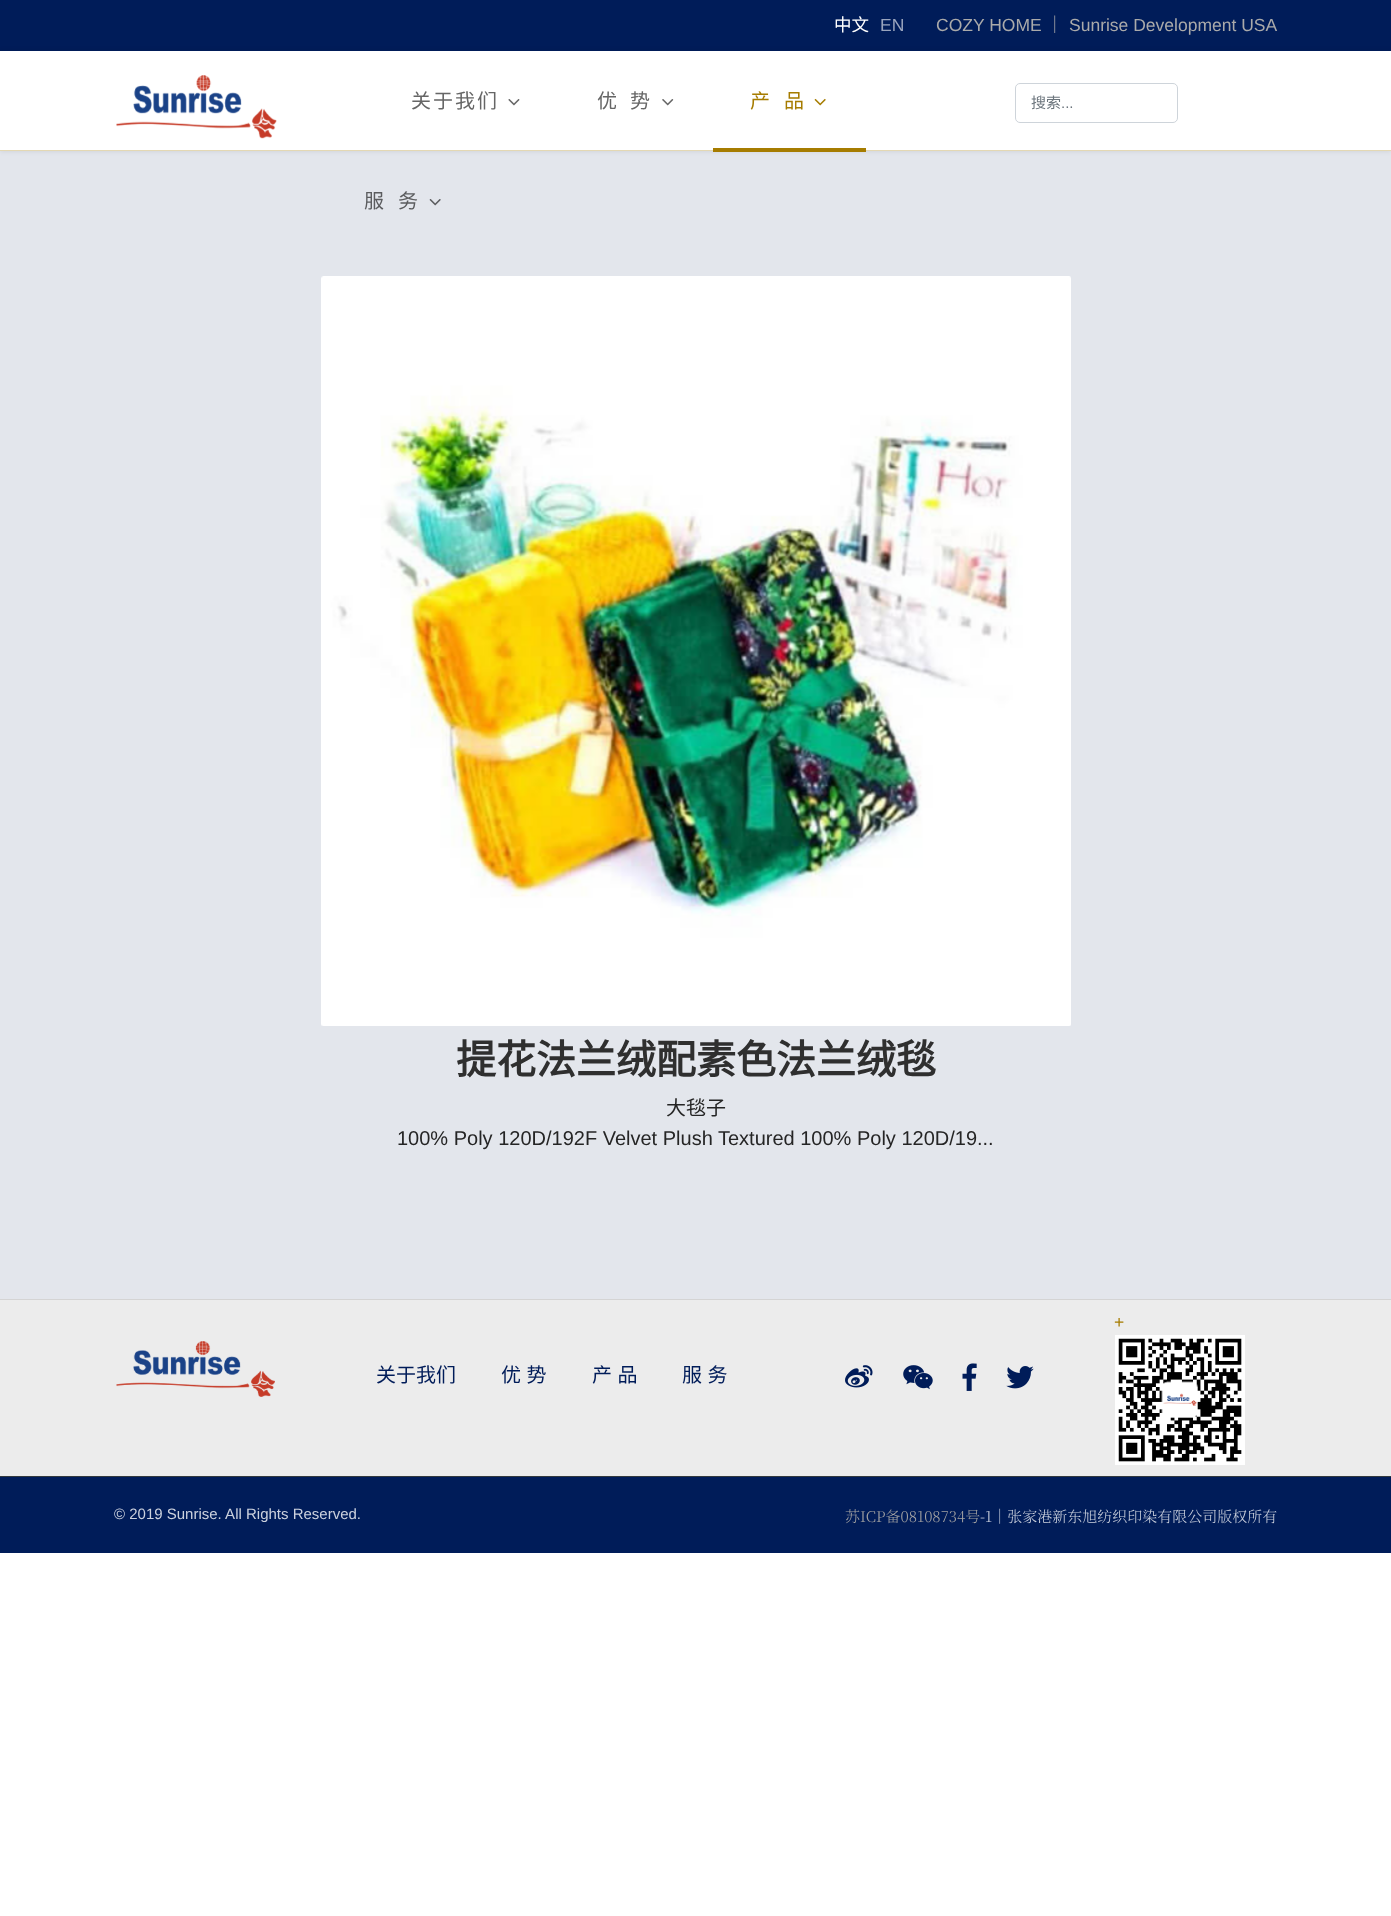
async function draw(canvas) {
  canvas.width = 1391
  canvas.height = 1916
  const ctx = canvas.getContext('2d')
  ctx.miterLimit = 4
  ctx.fontKerning = 'normal'
  async function loadImage(src) {
    const img = new Image()
    img.src = src
    await img.decode()
    return img
  }

  ctx.fillStyle = '#fff'
  ctx.fillRect(0, 0, 1391, 1916)
  ctx.fillStyle = '#001c59'
  ctx.fillRect(0, 0, 1391, 51)
  ctx.fillStyle = '#e3e6ec'
  ctx.fillRect(0, 151, 1391, 1148)
  ctx.fillStyle = '#0000001a'
  ctx.filter = 'blur(2.5px)'
  ctx.beginPath()
  ctx.rect(0, 51, 1391, 100)
  ctx.fill()
  ctx.filter = 'none'
  ctx.fillStyle = '#001c59cc'
  ctx.fillRect(3, 50, 1385, 1)
  ctx.font = '17.5px Noto Sans CJK SC'
  ctx.fillStyle = '#fff'
  ctx.fillText('中文', 834, 31)
  ctx.font = '17.5px Liberation Sans'
  ctx.fillStyle = '#99a4bd'
  ctx.fillText('EN', 880, 31)
  ctx.fillStyle = '#aaa'
  ctx.fillText('COZY HOME', 936, 31)
  ctx.font = '17.5px Noto Sans CJK SC'
  ctx.fillText('｜', 1046, 31)
  ctx.font = '17.5px Liberation Sans'
  ctx.fillText('Sunrise Development USA', 1069, 31)
  ctx.fillStyle = '#fff'
  ctx.fillRect(0, 51, 1391, 99)
  ctx.fillStyle = '#e4d8b3'
  ctx.fillRect(0, 150, 1391, 1)
  ctx.drawImage(await loadImage('image0.png'), 116, 75, 161, 64)
  ctx.letterSpacing = '2px'
  ctx.font = '20px Noto Sans CJK SC'
  ctx.fillStyle = '#666'
  ctx.fillText('关于我们', 411, 108)
  ctx.drawImage(await loadImage('image1.png'), 508, 99, 12, 7)
  ctx.fillText('优', 597, 108)
  ctx.fillText('势', 630, 108)
  ctx.drawImage(await loadImage('image2.png'), 662, 99, 12, 7)
  ctx.fillStyle = '#a67c00'
  ctx.fillText('产', 750, 108)
  ctx.fillText('品', 784, 108)
  ctx.drawImage(await loadImage('image3.png'), 814, 98, 12, 8)
  ctx.fillRect(713, 148, 153, 4)
  ctx.fillStyle = '#5b5c5e'
  ctx.fillText('服', 364, 208)
  ctx.fillText('务', 398, 208)
  ctx.drawImage(await loadImage('image4.png'), 429, 199, 12, 7)
  ctx.beginPath()
  ctx.roundRect(1015.5, 83.5, 162, 39, 4.5)
  ctx.strokeStyle = '#ced4da'
  ctx.stroke()
  ctx.letterSpacing = '0px'
  ctx.font = '15px Noto Sans CJK SC'
  ctx.fillStyle = '#6c757d'
  ctx.fillText('搜索', 1031, 108)
  ctx.font = '15px Liberation Sans'
  ctx.fillText('...', 1061, 108)
  ctx.drawImage(await loadImage('image5.png'), 321, 276, 750, 750)
  ctx.font = 'bold 40px Noto Sans CJK SC'
  ctx.fillStyle = '#2f2f2f'
  ctx.fillText('提花法兰绒配素色法兰绒毯', 456, 1074)
  ctx.font = '20px Noto Sans CJK SC'
  ctx.fillStyle = '#252525'
  ctx.fillText('大毯子', 666, 1115)
  ctx.font = '20px Liberation Sans'
  ctx.fillText('100% Poly 120D/192F Velvet Plush Textured 100% Poly 120D/19...', 397, 1145)
  ctx.fillStyle = '#ececec'
  ctx.fillRect(0, 1300, 1391, 176)
  ctx.fillStyle = '#d4d4d4'
  ctx.fillRect(0, 1299, 1391, 1)
  ctx.font = '17.5px Liberation Sans'
  ctx.fillStyle = '#a67c00'
  ctx.fillText('+', 1114, 1328)
  ctx.drawImage(await loadImage('image6.png'), 1115, 1335, 130, 130)
  ctx.drawImage(await loadImage('image7.png'), 116, 1341, 159, 56)
  ctx.font = '20px Noto Sans CJK SC'
  ctx.fillStyle = '#001c59'
  ctx.fillText('关于我们', 376, 1382)
  ctx.wordSpacing = '1px'
  ctx.fillText('优 势', 501, 1382)
  ctx.fillText('产 品', 592, 1382)
  ctx.fillText('服 务', 682, 1382)
  ctx.drawImage(await loadImage('image8.png'), 845, 1365, 28, 23)
  ctx.drawImage(await loadImage('image9.png'), 903, 1365, 30, 25)
  ctx.drawImage(await loadImage('image10.png'), 962, 1363, 15, 28)
  ctx.drawImage(await loadImage('image11.png'), 1006, 1366, 28, 23)
  ctx.fillRect(0, 1477, 1391, 76)
  ctx.fillStyle = '#32393e'
  ctx.fillRect(0, 1476, 1391, 1)
  ctx.wordSpacing = '0px'
  ctx.font = '15px Liberation Sans'
  ctx.fillStyle = '#ccd2de'
  ctx.fillText('© 2019 Sunrise. All Rights Reserved.', 114, 1519)
  ctx.font = '300 15px Noto Serif SC'
  ctx.fillStyle = '#a2a2a2'
  ctx.fillText('苏ICP备08108734号', 845, 1522)
  ctx.fillStyle = '#ccd2de'
  ctx.fillText('-1｜张家港新东旭纺织印染有限公司版权所有', 980, 1522)
}

draw(document.querySelector('canvas'))
